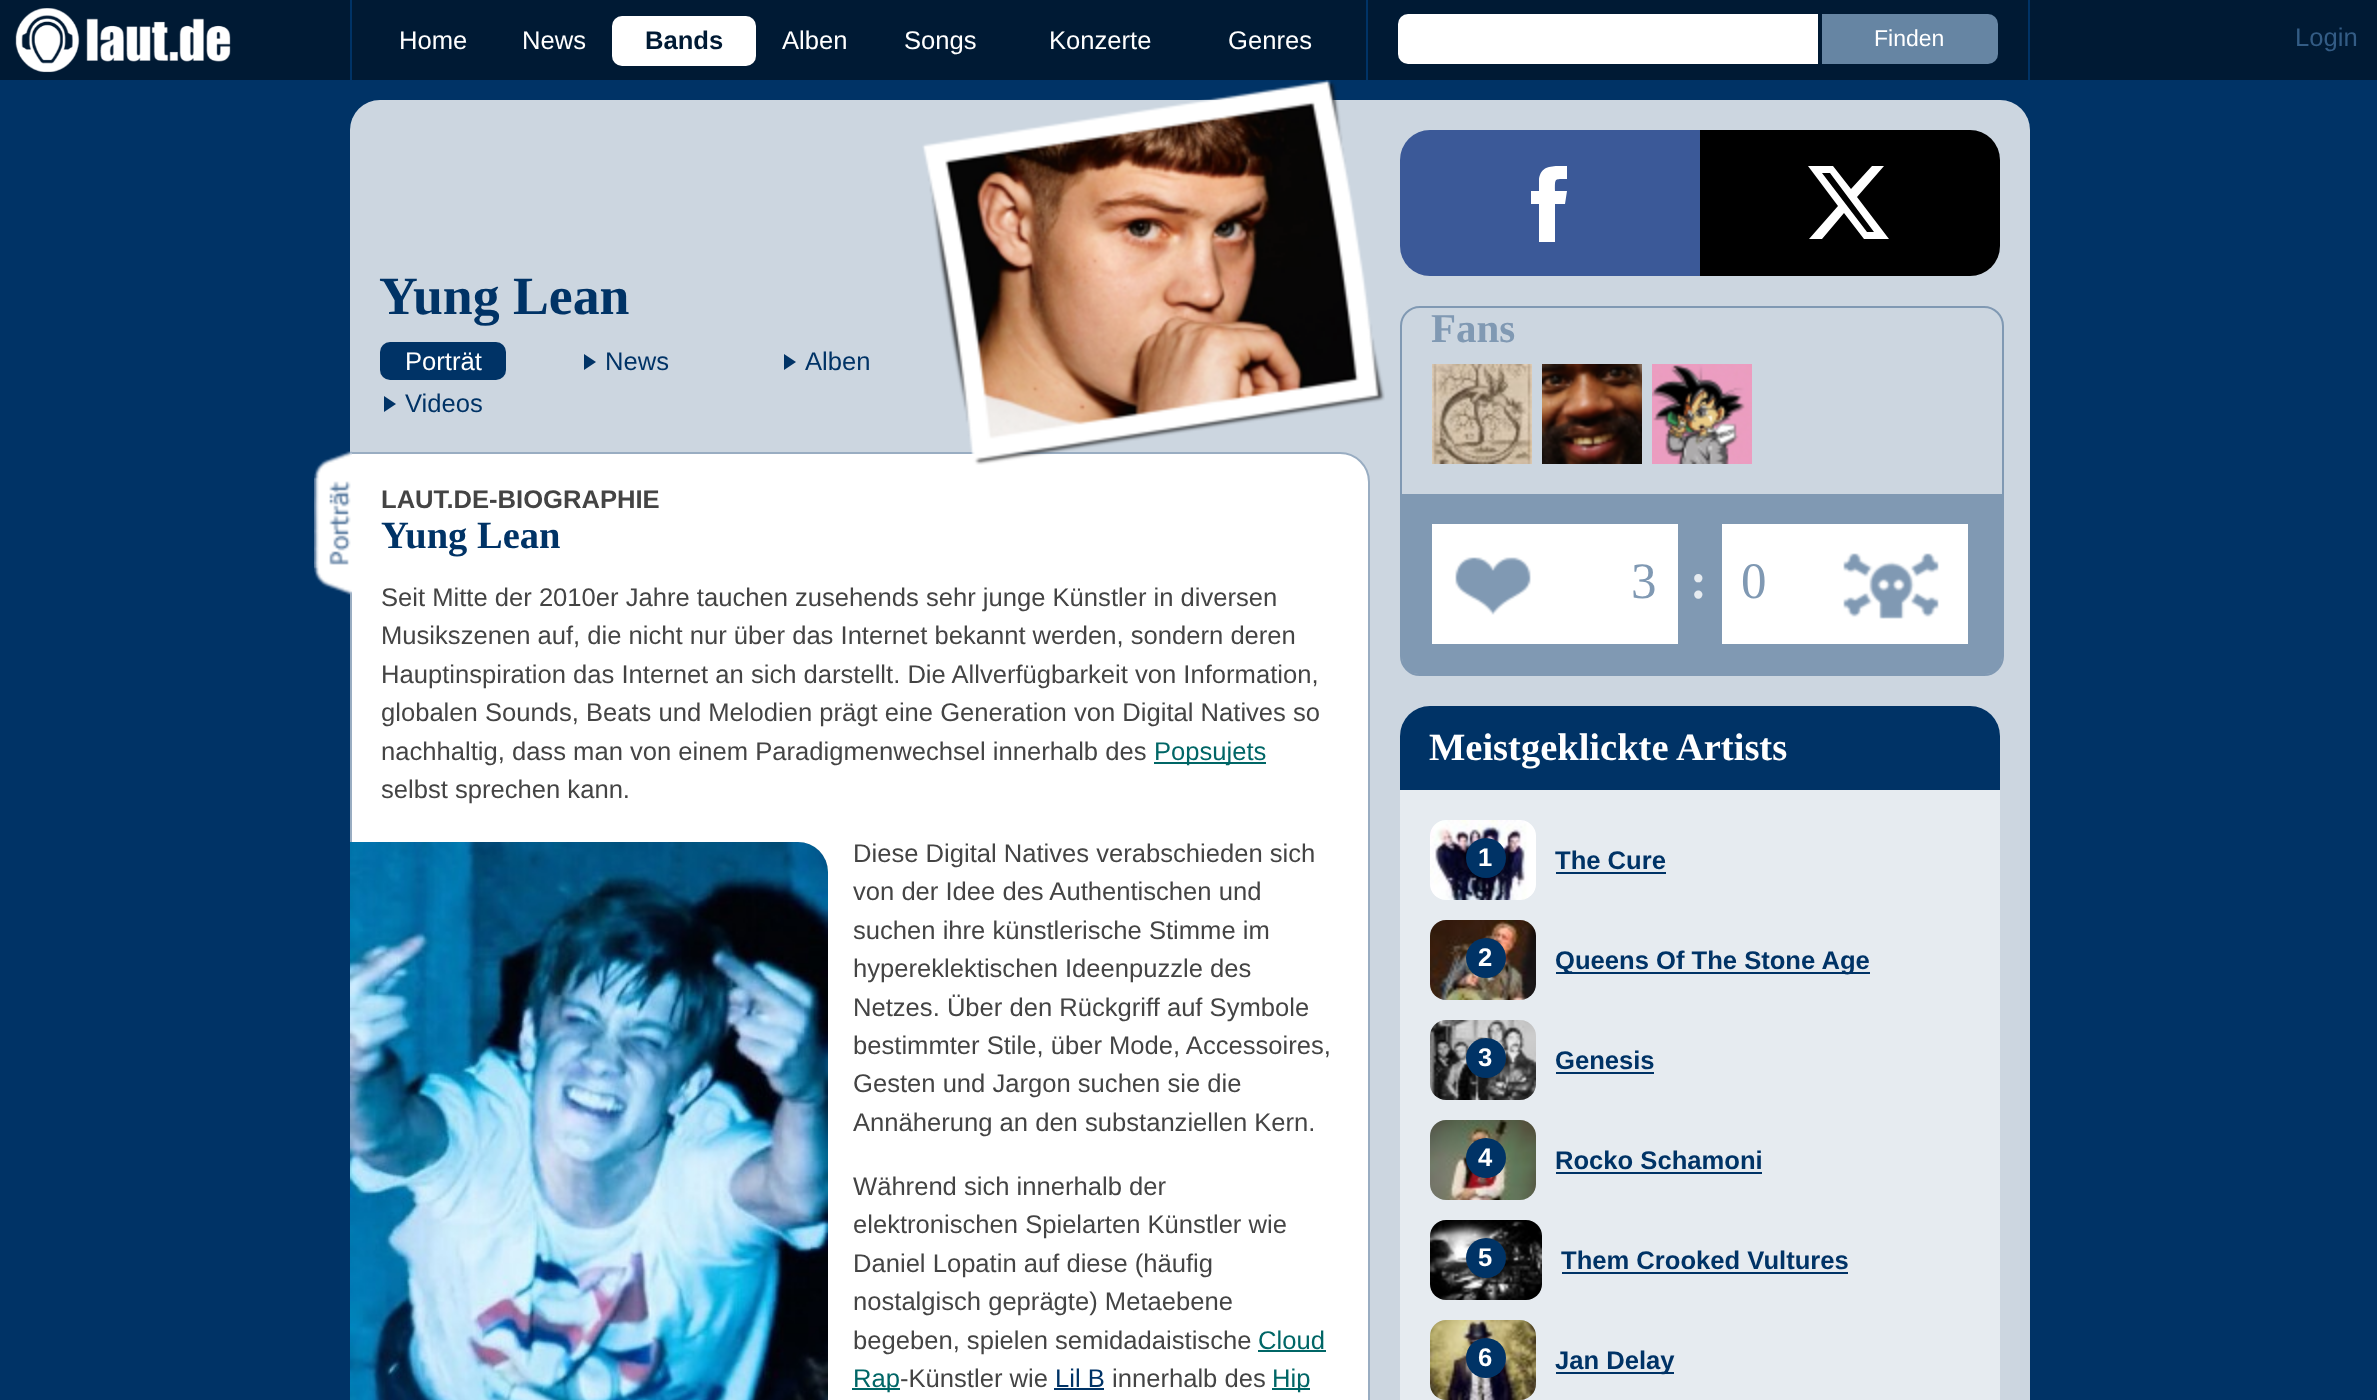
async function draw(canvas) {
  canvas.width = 2377
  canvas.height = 1400
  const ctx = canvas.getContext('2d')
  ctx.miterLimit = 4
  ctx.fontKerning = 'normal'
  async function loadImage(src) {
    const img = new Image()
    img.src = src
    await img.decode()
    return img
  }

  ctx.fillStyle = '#036'
  ctx.fillRect(0, 0, 2377, 1400)
  ctx.fillStyle = '#001a34'
  ctx.fillRect(0, 0, 2377, 80)
  ctx.drawImage(await loadImage('image0.png'), 15, 8, 216, 65)
  ctx.fillStyle = '#036'
  ctx.fillRect(350, 0, 2, 80)
  ctx.font = '25.6px Liberation Sans'
  ctx.fillStyle = '#fff'
  ctx.fillText('Home', 399, 49)
  ctx.fillText('News', 522, 49)
  ctx.beginPath()
  ctx.roundRect(612, 16, 144, 50, 10)
  ctx.fill()
  ctx.font = 'bold 25.6px Liberation Sans'
  ctx.fillStyle = '#001a34'
  ctx.fillText('Bands', 645, 49)
  ctx.font = '25.6px Liberation Sans'
  ctx.fillStyle = '#fff'
  ctx.fillText('Alben', 782, 49)
  ctx.fillText('Songs', 904, 49)
  ctx.fillText('Konzerte', 1049, 49)
  ctx.fillText('Genres', 1228, 49)
  ctx.fillStyle = '#036'
  ctx.fillRect(2028, 0, 2, 80)
  ctx.fillRect(1366, 0, 2, 80)
  ctx.fillStyle = '#fff'
  ctx.beginPath()
  ctx.roundRect(1398, 14, 420, 50, [10, 0, 0, 10])
  ctx.fill()
  ctx.fillStyle = '#6685a3'
  ctx.beginPath()
  ctx.roundRect(1822, 14, 176, 50, [0, 10, 10, 0])
  ctx.fill()
  ctx.font = '23px Liberation Sans'
  ctx.fillStyle = '#fff'
  ctx.fillText('Finden', 1874, 46)
  ctx.font = '25.6px Liberation Sans'
  ctx.fillStyle = '#335c85'
  ctx.fillText('Login', 2295, 46)
  ctx.fillStyle = '#ccd6e0'
  ctx.beginPath()
  ctx.roundRect(350, 100, 1680, 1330, 30)
  ctx.fill()
  ctx.font = 'bold 53.75px Liberation Serif'
  ctx.fillStyle = '#036'
  ctx.fillText('Yung Lean', 379, 314)
  ctx.beginPath()
  ctx.roundRect(380, 342, 126, 38, 10)
  ctx.fill()
  ctx.font = '25.6px Liberation Sans'
  ctx.fillStyle = '#fff'
  ctx.fillText('Porträt', 405, 370)
  ctx.fillStyle = '#036'
  ctx.beginPath()
  ctx.moveTo(584, 370)
  ctx.lineTo(584, 354)
  ctx.lineTo(596, 362)
  ctx.closePath()
  ctx.fill()
  ctx.fillText('News', 605, 370)
  ctx.beginPath()
  ctx.moveTo(784, 370)
  ctx.lineTo(784, 354)
  ctx.lineTo(796, 362)
  ctx.closePath()
  ctx.fill()
  ctx.fillText('Alben', 805, 370)
  ctx.beginPath()
  ctx.moveTo(384, 412)
  ctx.lineTo(384, 396)
  ctx.lineTo(396, 404)
  ctx.closePath()
  ctx.fill()
  ctx.fillText('Videos', 405, 412)
  ctx.fillStyle = '#fff'
  ctx.beginPath()
  ctx.moveTo(351, 453)
  ctx.lineTo(1340, 453)
  ctx.bezierCurveTo(1356, 453, 1369, 466, 1369, 482)
  ctx.lineTo(1369, 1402)
  ctx.bezierCurveTo(1369, 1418, 1356, 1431, 1340, 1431)
  ctx.lineTo(351, 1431)
  ctx.closePath()
  ctx.fill()
  ctx.strokeStyle = '#99adc2'
  ctx.lineWidth = 2
  ctx.stroke()
  ctx.drawImage(await loadImage('image1.png'), 922, 80, 463, 385)
  ctx.drawImage(await loadImage('image2.png'), 314, 451, 38, 144)
  ctx.font = 'bold 25.6px Liberation Sans'
  ctx.fillStyle = '#444'
  ctx.fillText('LAUT.DE-BIOGRAPHIE', 381, 508)
  ctx.font = 'bold 38.5px Liberation Serif'
  ctx.fillStyle = '#036'
  ctx.fillText('Yung Lean', 381, 548)
  ctx.font = '25.6px Liberation Sans'
  ctx.fillStyle = '#444'
  ctx.fillText('Seit Mitte der 2010er Jahre tauchen zusehends sehr junge Künstler in diversen', 381, 606)
  ctx.fillText('Musikszenen auf, die nicht nur über das Internet bekannt werden, sondern deren', 381, 644)
  ctx.fillText('Hauptinspiration das Internet an sich darstellt. Die Allverfügbarkeit von Information,', 381, 683)
  ctx.fillText('globalen Sounds, Beats und Melodien prägt eine Generation von Digital Natives so', 381, 721)
  ctx.fillText('nachhaltig, dass man von einem Paradigmenwechsel innerhalb des', 381, 760)
  ctx.fillStyle = '#066'
  ctx.fillRect(1154, 762, 112, 2)
  ctx.fillText('Popsujets', 1154, 760)
  ctx.fillStyle = '#444'
  ctx.fillText('selbst sprechen kann.', 381, 798)
  ctx.fillStyle = '#fff5e6'
  ctx.beginPath()
  ctx.moveTo(350, 842)
  ctx.lineTo(798, 842)
  ctx.bezierCurveTo(814.5, 842, 828, 855.5, 828, 872)
  ctx.lineTo(828, 1400)
  ctx.bezierCurveTo(828, 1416.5, 814.5, 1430, 798, 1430)
  ctx.lineTo(350, 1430)
  ctx.closePath()
  ctx.fill()
  ctx.drawImage(await loadImage('image3.png'), 350, 842, 478, 558)
  ctx.fillStyle = '#444'
  ctx.fillText('Diese Digital Natives verabschieden sich', 853, 862)
  ctx.fillText('von der Idee des Authentischen und', 853, 900)
  ctx.fillText('suchen ihre künstlerische Stimme im', 853, 939)
  ctx.fillText('hypereklektischen Ideenpuzzle des', 853, 977)
  ctx.fillText('Netzes. Über den Rückgriff auf Symbole', 853, 1016)
  ctx.fillText('bestimmter Stile, über Mode, Accessoires,', 853, 1054)
  ctx.fillText('Gesten und Jargon suchen sie die', 853, 1092)
  ctx.fillText('Annäherung an den substanziellen Kern.', 853, 1131)
  ctx.fillText('Während sich innerhalb der', 853, 1195)
  ctx.fillText('elektronischen Spielarten Künstler wie', 853, 1233)
  ctx.fillText('Daniel Lopatin auf diese (häufig', 853, 1272)
  ctx.fillText('nostalgisch geprägte) Metaebene', 853, 1310)
  ctx.fillText('begeben, spielen semidadaistische', 853, 1349)
  ctx.fillStyle = '#066'
  ctx.fillText('Cloud', 1258, 1349)
  ctx.fillRect(1258, 1350, 68, 2)
  ctx.fillRect(852, 1388, 48, 2)
  ctx.fillText('Rap', 853, 1387)
  ctx.fillStyle = '#444'
  ctx.fillText('-Künstler wie', 900, 1387)
  ctx.fillStyle = '#036'
  ctx.fillText('Lil B', 1055, 1387)
  ctx.fillRect(1054, 1388, 50, 2)
  ctx.fillStyle = '#444'
  ctx.fillText('innerhalb des', 1112, 1387)
  ctx.fillStyle = '#066'
  ctx.fillRect(1272, 1388, 38, 2)
  ctx.fillText('Hip', 1272, 1387)
  ctx.fillStyle = '#3b5998'
  ctx.beginPath()
  ctx.roundRect(1400, 130, 300, 146, [30, 0, 0, 30])
  ctx.fill()
  ctx.fillStyle = '#fff'
  ctx.beginPath()
  ctx.moveTo(1555, 242)
  ctx.lineTo(1555, 204)
  ctx.lineTo(1565, 204)
  ctx.lineTo(1567, 191)
  ctx.lineTo(1555, 191)
  ctx.bezierCurveTo(1555, 178, 1554, 179, 1567, 179)
  ctx.lineTo(1567, 166)
  ctx.bezierCurveTo(1555, 166, 1541, 164, 1539, 179)
  ctx.lineTo(1539, 191)
  ctx.lineTo(1531, 191)
  ctx.lineTo(1531, 204)
  ctx.lineTo(1539, 204)
  ctx.lineTo(1539, 242)
  ctx.closePath()
  ctx.fill('evenodd')
  ctx.fillStyle = '#000'
  ctx.beginPath()
  ctx.roundRect(1700, 130, 300, 146, [0, 30, 30, 0])
  ctx.fill()
  ctx.fillStyle = '#fff'
  ctx.beginPath()
  ctx.moveTo(1872, 166)
  ctx.lineTo(1884, 166)
  ctx.lineTo(1857, 197)
  ctx.lineTo(1889, 239)
  ctx.lineTo(1864, 239)
  ctx.lineTo(1844, 213)
  ctx.lineTo(1822, 239)
  ctx.lineTo(1809, 239)
  ctx.lineTo(1838, 206)
  ctx.lineTo(1808, 166)
  ctx.lineTo(1833, 166)
  ctx.lineTo(1851, 189)
  ctx.closePath()
  ctx.moveTo(1867, 232)
  ctx.lineTo(1874, 232)
  ctx.lineTo(1830, 173)
  ctx.lineTo(1822, 173)
  ctx.closePath()
  ctx.fill()
  ctx.beginPath()
  ctx.roundRect(1401, 307, 602, 368, 19)
  ctx.strokeStyle = '#8099b3'
  ctx.stroke()
  ctx.font = 'bold 41px Liberation Serif'
  ctx.fillStyle = '#8099b3'
  ctx.fillText('Fans', 1431, 342)
  ctx.drawImage(await loadImage('image4.png'), 1432, 364, 100, 100)
  ctx.drawImage(await loadImage('image5.png'), 1542, 364, 100, 100)
  ctx.drawImage(await loadImage('image6.png'), 1652, 364, 100, 100)
  ctx.beginPath()
  ctx.roundRect(1402, 494, 600, 180, [0, 0, 16, 16])
  ctx.fill()
  ctx.fillStyle = '#fff'
  ctx.fillRect(1432, 524, 246, 120)
  ctx.drawImage(await loadImage('image7.png'), 1455, 557, 76, 58)
  ctx.font = '51px Liberation Serif'
  ctx.fillStyle = '#8099b3'
  ctx.fillText('3', 1631, 598)
  ctx.font = 'bold 51px Liberation Serif'
  ctx.fillStyle = '#e6ebf0'
  ctx.fillText(':', 1690, 598)
  ctx.fillStyle = '#fff'
  ctx.fillRect(1722, 524, 246, 120)
  ctx.drawImage(await loadImage('image8.png'), 1843, 553, 96, 66)
  ctx.font = '51px Liberation Serif'
  ctx.fillStyle = '#8099b3'
  ctx.fillText('0', 1741, 598)
  ctx.fillStyle = '#e6ebf0'
  ctx.beginPath()
  ctx.roundRect(1400, 706, 600, 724, 30)
  ctx.fill()
  ctx.fillStyle = '#036'
  ctx.beginPath()
  ctx.roundRect(1400, 706, 600, 84, [30, 30, 0, 0])
  ctx.fill()
  ctx.font = 'bold 38.5px Liberation Serif'
  ctx.fillStyle = '#fff'
  ctx.fillText('Meistgeklickte Artists', 1429, 760)
  ctx.drawImage(await loadImage('image9.png'), 1430, 820, 106, 80)
  ctx.fillStyle = '#036'
  ctx.beginPath()
  ctx.arc(1486, 858, 20, 0, 2 * Math.PI)
  ctx.fill()
  ctx.font = 'bold 25.6px Liberation Sans'
  ctx.fillStyle = '#fff'
  ctx.fillText('1', 1478, 866)
  ctx.fillStyle = '#036'
  ctx.fillText('The Cure', 1555, 869)
  ctx.fillRect(1556, 872, 110, 2)
  ctx.drawImage(await loadImage('image10.png'), 1430, 920, 106, 80)
  ctx.beginPath()
  ctx.arc(1486, 958, 20, 0, 2 * Math.PI)
  ctx.fill()
  ctx.fillStyle = '#fff'
  ctx.fillText('2', 1478, 966)
  ctx.fillStyle = '#036'
  ctx.fillRect(1556, 972, 314, 2)
  ctx.fillText('Queens Of The Stone Age', 1555, 969)
  ctx.drawImage(await loadImage('image11.png'), 1430, 1020, 106, 80)
  ctx.beginPath()
  ctx.arc(1486, 1058, 20, 0, 2 * Math.PI)
  ctx.fill()
  ctx.fillStyle = '#fff'
  ctx.fillText('3', 1478, 1066)
  ctx.fillStyle = '#036'
  ctx.fillText('Genesis', 1555, 1069)
  ctx.fillRect(1556, 1072, 98, 2)
  ctx.drawImage(await loadImage('image12.png'), 1430, 1120, 106, 80)
  ctx.beginPath()
  ctx.arc(1486, 1158, 20, 0, 2 * Math.PI)
  ctx.fill()
  ctx.fillStyle = '#fff'
  ctx.fillText('4', 1478, 1166)
  ctx.fillStyle = '#036'
  ctx.fillText('Rocko Schamoni', 1555, 1169)
  ctx.fillRect(1556, 1172, 206, 2)
  ctx.drawImage(await loadImage('image13.png'), 1430, 1220, 112, 80)
  ctx.beginPath()
  ctx.arc(1486, 1258, 20, 0, 2 * Math.PI)
  ctx.fill()
  ctx.fillStyle = '#fff'
  ctx.fillText('5', 1478, 1266)
  ctx.fillStyle = '#036'
  ctx.fillText('Them Crooked Vultures', 1561, 1269)
  ctx.fillRect(1562, 1272, 286, 2)
  ctx.drawImage(await loadImage('image14.png'), 1430, 1320, 106, 80)
  ctx.beginPath()
  ctx.arc(1486, 1358, 20, 0, 2 * Math.PI)
  ctx.fill()
  ctx.fillStyle = '#fff'
  ctx.fillText('6', 1478, 1366)
  ctx.fillStyle = '#036'
  ctx.fillRect(1556, 1372, 118, 2)
  ctx.fillText('Jan Delay', 1555, 1369)
}

draw(document.querySelector('canvas'))
